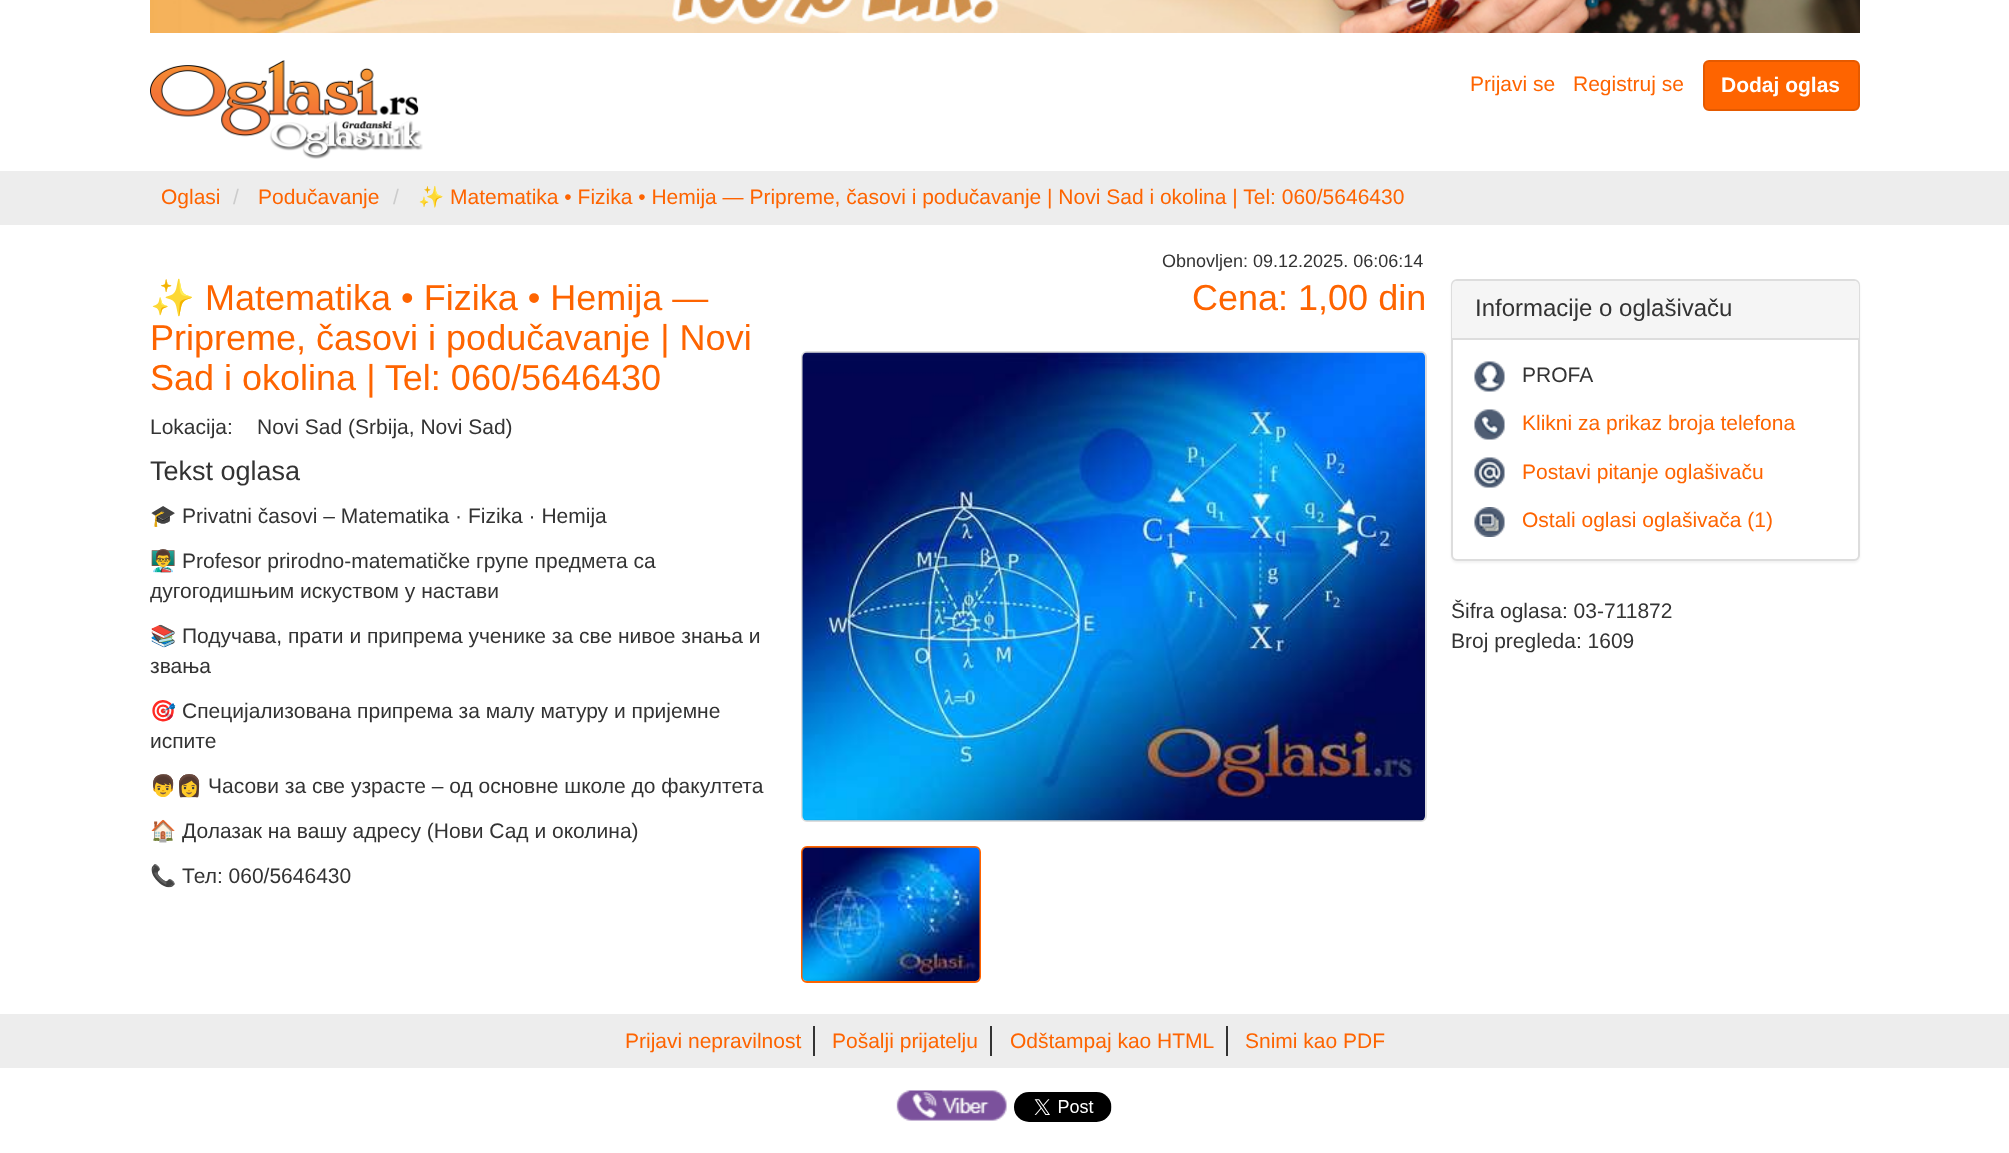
async function draw(canvas) {
  canvas.width = 2009
  canvas.height = 1153
  const ctx = canvas.getContext('2d')
  ctx.miterLimit = 4
  ctx.fontKerning = 'normal'
  async function loadImage(src) {
    const img = new Image()
    img.src = src
    await img.decode()
    return img
  }

  ctx.fillStyle = '#fff'
  ctx.fillRect(0, 0, 2009, 1153)
  ctx.drawImage(await loadImage('image0.png'), 150, 0, 1710, 33)
  ctx.drawImage(await loadImage('image1.png'), 150, 60, 273, 99)
  ctx.font = '21px Liberation Sans'
  ctx.fillStyle = '#fe6400'
  ctx.fillText('Prijavi se', 1470, 91)
  ctx.fillText('Registruj se', 1573, 91)
  ctx.beginPath()
  ctx.roundRect(1704, 61, 155, 49, 5)
  ctx.fill()
  ctx.strokeStyle = '#e55a00'
  ctx.lineWidth = 2
  ctx.stroke()
  ctx.font = 'bold 21px Liberation Sans'
  ctx.fillStyle = '#fff'
  ctx.fillText('Dodaj oglas', 1721, 92)
  ctx.fillStyle = '#ededed'
  ctx.fillRect(0, 171, 2009, 54)
  ctx.font = '21px Liberation Sans'
  ctx.fillStyle = '#fe6400'
  ctx.fillText('Oglasi', 161, 204)
  ctx.fillStyle = '#ccc'
  ctx.fillText('/', 233, 204)
  ctx.fillStyle = '#fe6400'
  ctx.fillText('Podučavanje', 258, 204)
  ctx.fillStyle = '#ccc'
  ctx.fillText('/', 393, 204)
  ctx.font = '21px Noto Color Emoji'
  ctx.fillStyle = '#fe6400'
  ctx.fillText('✨', 418, 204)
  ctx.font = '21px Liberation Sans'
  ctx.fillText('Matematika • Fizika • Hemija — Pripreme, časovi i podučavanje | Novi Sad i okolina | Tel: 060/5646430', 450, 204)
  ctx.font = '36px Noto Color Emoji'
  ctx.fillText('✨', 150, 310)
  ctx.font = '36px Liberation Sans'
  ctx.fillText('Matematika • Fizika • Hemija —', 205, 310)
  ctx.fillText('Pripreme, časovi i podučavanje | Novi', 150, 350)
  ctx.fillText('Sad i okolina | Tel: 060/5646430', 150, 390)
  ctx.font = '21px Liberation Sans'
  ctx.fillStyle = '#333'
  ctx.fillText('Lokacija:', 150, 434)
  ctx.fillText('Novi Sad (Srbija, Novi Sad)', 257, 434)
  ctx.font = '27px Liberation Sans'
  ctx.fillText('Tekst oglasa', 150, 480)
  ctx.font = '21px Noto Color Emoji'
  ctx.fillText('🎓', 150, 523)
  ctx.font = '21px Liberation Sans'
  ctx.fillText('Privatni časovi – Matematika · Fizika · Hemija', 182, 523)
  ctx.font = '21px Noto Color Emoji'
  ctx.fillText('👨‍🏫', 150, 568)
  ctx.font = '21px Liberation Sans'
  ctx.fillText('Profesor prirodno-matematičke групе предмета са', 182, 568)
  ctx.fillText('дугогодишњим искуством у настави', 150, 598)
  ctx.font = '21px Noto Color Emoji'
  ctx.fillText('📚', 150, 643)
  ctx.font = '21px Liberation Sans'
  ctx.fillText('Подучава, прати и припрема ученике за све нивое знања и', 182, 643)
  ctx.fillText('звања', 150, 673)
  ctx.font = '21px Noto Color Emoji'
  ctx.fillText('🎯', 150, 718)
  ctx.font = '21px Liberation Sans'
  ctx.fillText('Специјализована припрема за малу матуру и пријемне', 182, 718)
  ctx.fillText('испите', 150, 748)
  ctx.font = '21px Noto Color Emoji'
  ctx.fillText('👦👩', 150, 793)
  ctx.font = '21px Liberation Sans'
  ctx.fillText('Часови за све узрасте – од основне школе до факултета', 208, 793)
  ctx.font = '21px Noto Color Emoji'
  ctx.fillText('🏠', 150, 838)
  ctx.font = '21px Liberation Sans'
  ctx.fillText('Долазак на вашу адресу (Нови Сад и околина)', 182, 838)
  ctx.font = '21px Noto Color Emoji'
  ctx.fillText('📞', 150, 883)
  ctx.font = '21px Liberation Sans'
  ctx.fillText('Тел: 060/5646430', 182, 883)
  ctx.font = '18px Liberation Sans'
  ctx.fillText('Obnovljen: 09.12.2025. 06:06:14', 1162, 267)
  ctx.font = '36px Liberation Sans'
  ctx.fillStyle = '#fe6400'
  ctx.fillText('Cena: 1,00 din', 1192, 310)
  ctx.beginPath()
  ctx.roundRect(802, 352, 624, 469, 5)
  ctx.strokeStyle = '#ddd'
  ctx.stroke()
  ctx.drawImage(await loadImage('image2.png'), 802, 352, 623, 469)
  ctx.beginPath()
  ctx.roundRect(802, 847, 178, 135, 5)
  ctx.strokeStyle = '#fe6400'
  ctx.stroke()
  ctx.drawImage(await loadImage('image3.png'), 802, 847, 178, 134)
  ctx.fillStyle = '#0000000d'
  ctx.filter = 'blur(1px)'
  ctx.beginPath()
  ctx.roundRect(1451, 281, 409, 282, 6)
  ctx.fill()
  ctx.filter = 'none'
  ctx.fillStyle = '#fff'
  ctx.beginPath()
  ctx.roundRect(1452, 280, 407, 280, 5)
  ctx.fill()
  ctx.strokeStyle = '#ddd'
  ctx.stroke()
  ctx.fillStyle = '#f5f5f5'
  ctx.beginPath()
  ctx.roundRect(1452, 281, 407, 58, [5, 5, 0, 0])
  ctx.fill()
  ctx.fillStyle = '#ddd'
  ctx.fillRect(1452, 338, 407, 2)
  ctx.font = '24px Liberation Sans'
  ctx.fillStyle = '#333'
  ctx.fillText('Informacije o oglašivaču', 1475, 316)
  ctx.drawImage(await loadImage('image4.png'), 1474, 361, 31, 31)
  ctx.font = '21px Liberation Sans'
  ctx.fillText('PROFA', 1522, 382)
  ctx.drawImage(await loadImage('image5.png'), 1474, 409, 31, 31)
  ctx.fillStyle = '#fe6400'
  ctx.fillText('Klikni za prikaz broja telefona', 1522, 430)
  ctx.drawImage(await loadImage('image6.png'), 1474, 457, 31, 31)
  ctx.fillText('Postavi pitanje oglašivaču', 1522, 479)
  ctx.drawImage(await loadImage('image7.png'), 1474, 507, 31, 30)
  ctx.fillText('Ostali oglasi oglašivača (1)', 1522, 527)
  ctx.fillStyle = '#333'
  ctx.fillText('Šifra oglasa: 03-711872', 1451, 618)
  ctx.fillText('Broj pregleda: 1609', 1451, 648)
  ctx.fillStyle = '#ededed'
  ctx.fillRect(0, 1014, 2009, 54)
  ctx.fillStyle = '#333'
  ctx.fillRect(813, 1026, 2, 30)
  ctx.fillStyle = '#fe6400'
  ctx.fillText('Prijavi nepravilnost', 625, 1048)
  ctx.fillStyle = '#333'
  ctx.fillRect(990, 1026, 2, 30)
  ctx.fillStyle = '#fe6400'
  ctx.fillText('Pošalji prijatelju', 832, 1048)
  ctx.fillStyle = '#333'
  ctx.fillRect(1226, 1026, 2, 30)
  ctx.fillStyle = '#fe6400'
  ctx.fillText('Odštampaj kao HTML', 1010, 1048)
  ctx.fillText('Snimi kao PDF', 1245, 1048)
  ctx.drawImage(await loadImage('image8.png'), 896, 1090, 111, 31)
  ctx.drawImage(await loadImage('image9.png'), 1014, 1092, 98, 30)
}

draw(document.querySelector('canvas'))
